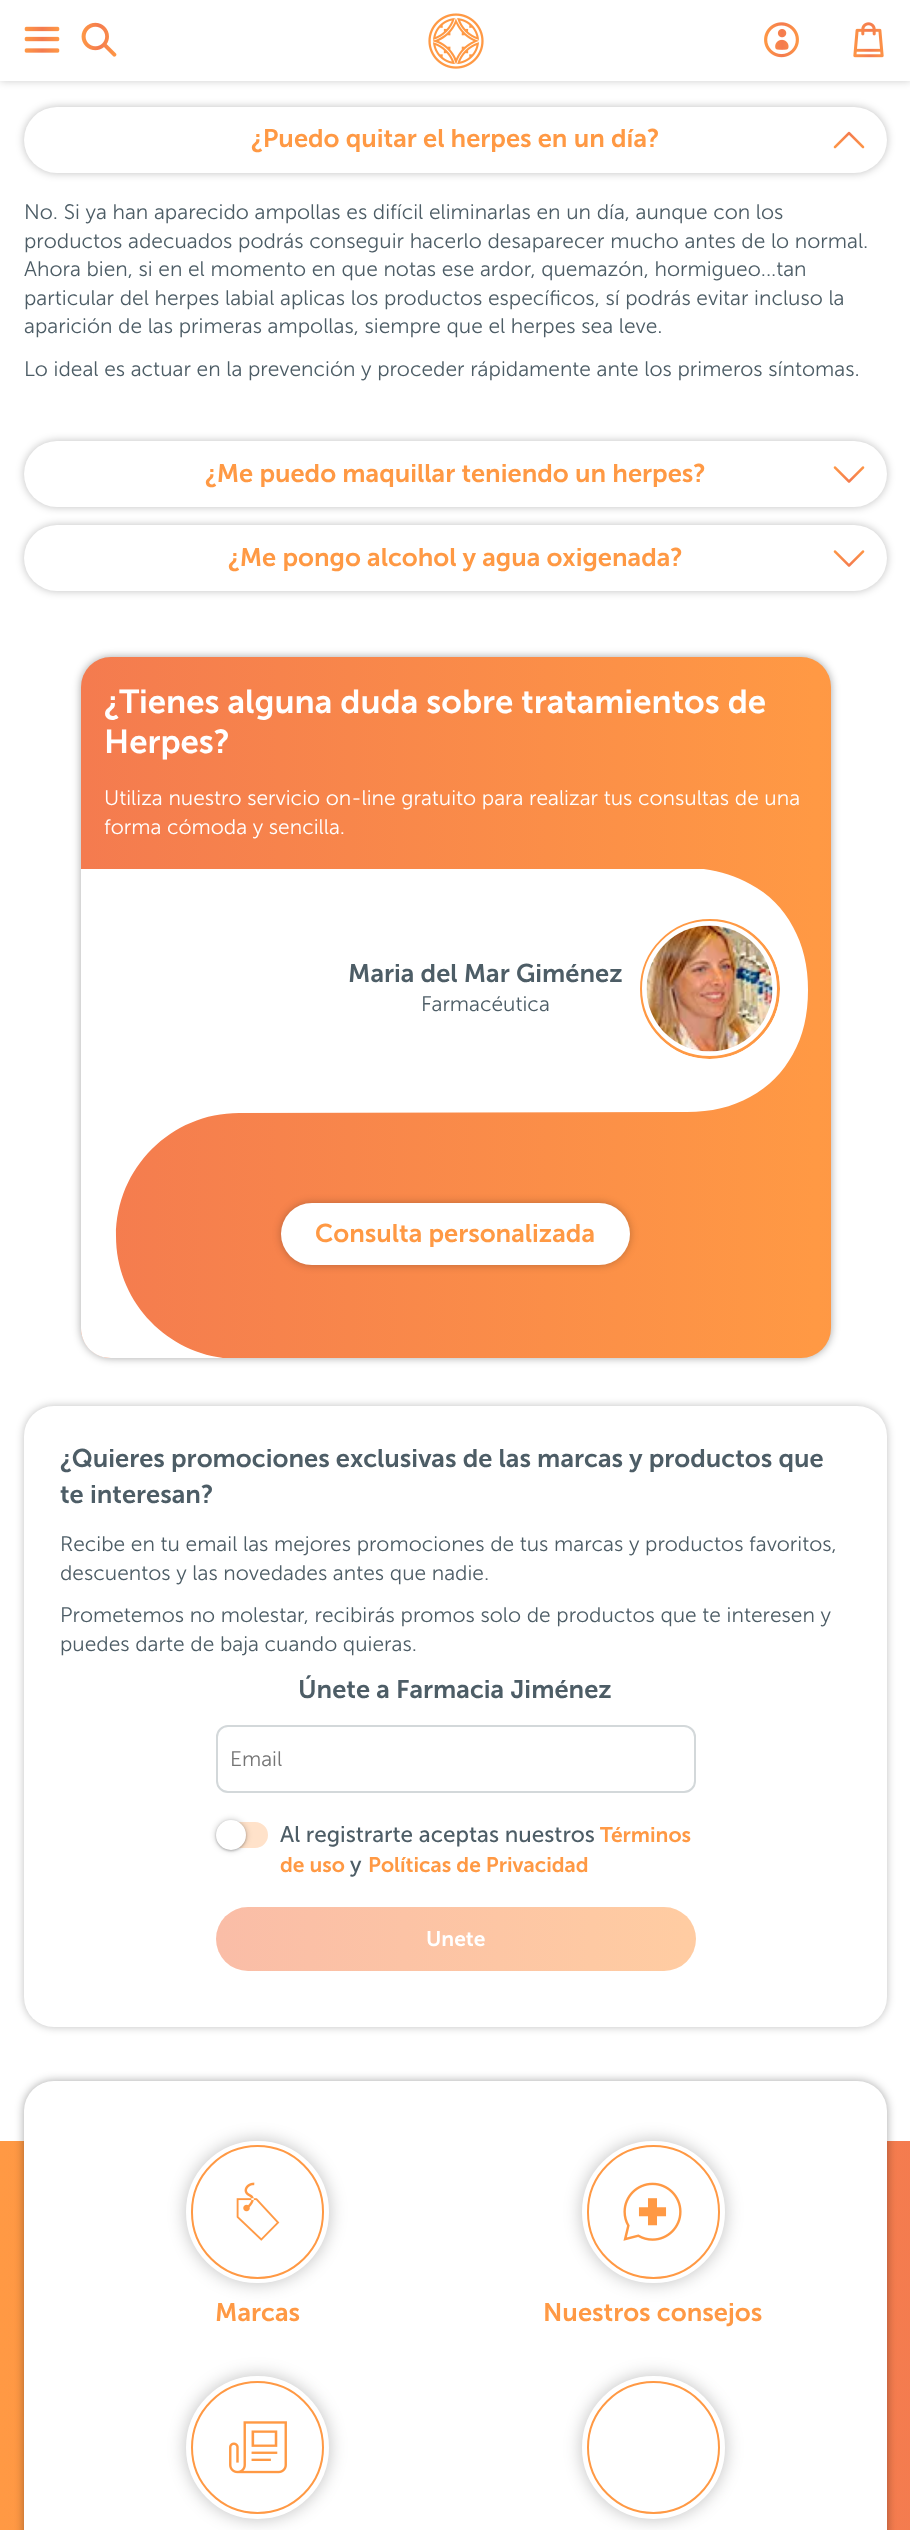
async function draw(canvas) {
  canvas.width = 910
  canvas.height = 2530
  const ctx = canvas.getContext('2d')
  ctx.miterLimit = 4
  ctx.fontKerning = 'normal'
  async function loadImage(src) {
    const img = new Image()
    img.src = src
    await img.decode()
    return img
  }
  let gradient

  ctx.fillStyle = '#fff'
  ctx.fillRect(0, 0, 910, 2530)
  ctx.fillStyle = '#00000033'
  ctx.filter = 'blur(4.5px)'
  ctx.beginPath()
  ctx.rect(0, 0, 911, 81)
  ctx.fill()
  ctx.filter = 'none'
  ctx.fillStyle = '#fff'
  ctx.fillRect(0, 0, 910, 81)
  ctx.drawImage(await loadImage('image0.png'), 24, 26, 36, 27)
  ctx.drawImage(await loadImage('image1.png'), 81, 22, 36, 35)
  ctx.drawImage(await loadImage('image2.png'), 428, 13, 56, 56)
  ctx.drawImage(await loadImage('image3.png'), 764, 22, 35, 36)
  ctx.drawImage(await loadImage('image4.png'), 853, 22, 31, 36)
  ctx.fillStyle = '#00000040'
  ctx.filter = 'blur(4.5px)'
  ctx.beginPath()
  ctx.roundRect(24, 107, 863, 66, 33)
  ctx.fill()
  ctx.filter = 'none'
  ctx.fillStyle = '#fff'
  ctx.beginPath()
  ctx.roundRect(24, 107, 863, 66, 33)
  ctx.fill()
  ctx.font = '600 25.5px Museo Sans'
  ctx.fillStyle = '#f94'
  ctx.fillText('¿Puedo quitar el herpes en un día?', 251, 147)
  ctx.drawImage(await loadImage('image5.png'), 833, 131, 32, 18)
  ctx.font = '300 21px Museo Sans'
  ctx.fillStyle = '#4d5d66'
  ctx.fillText('No. Si ya han aparecido ampollas es difícil eliminarlas en un día, aunque con los', 24, 219)
  ctx.fillText('productos adecuados podrás conseguir hacerlo desaparecer mucho antes de lo normal.', 24, 248)
  ctx.fillText('Ahora bien, si en el momento en que notas ese ardor, quemazón, hormigueo...tan', 24, 276)
  ctx.fillText('particular del herpes labial aplicas los productos específicos, sí podrás evitar incluso la', 24, 305)
  ctx.fillText('aparición de las primeras ampollas, siempre que el herpes sea leve.', 24, 333)
  ctx.fillText('Lo ideal es actuar en la prevención y proceder rápidamente ante los primeros síntomas.', 24, 376)
  ctx.fillStyle = '#00000040'
  ctx.filter = 'blur(4.5px)'
  ctx.beginPath()
  ctx.roundRect(24, 441, 863, 66, 33)
  ctx.fill()
  ctx.filter = 'none'
  ctx.fillStyle = '#fff'
  ctx.beginPath()
  ctx.roundRect(24, 441, 863, 66, 33)
  ctx.fill()
  ctx.font = '600 25.5px Museo Sans'
  ctx.fillStyle = '#f94'
  ctx.fillText('¿Me puedo maquillar teniendo un herpes?', 205, 482)
  ctx.drawImage(await loadImage('image6.png'), 833, 466, 32, 17)
  ctx.fillStyle = '#00000040'
  ctx.filter = 'blur(4.5px)'
  ctx.beginPath()
  ctx.roundRect(24, 525, 863, 66, 33)
  ctx.fill()
  ctx.filter = 'none'
  ctx.fillStyle = '#fff'
  ctx.beginPath()
  ctx.roundRect(24, 525, 863, 66, 33)
  ctx.fill()
  ctx.fillStyle = '#f94'
  ctx.fillText('¿Me pongo alcohol y agua oxigenada?', 228, 566)
  ctx.drawImage(await loadImage('image6.png'), 833, 550, 32, 17)
  ctx.fillStyle = '#00000059'
  ctx.filter = 'blur(4.5px)'
  ctx.beginPath()
  ctx.roundRect(81, 657, 750, 701, 30)
  ctx.fill()
  ctx.filter = 'none'
  gradient = ctx.createLinearGradient(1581, 1007, 81, 1007)
  gradient.addColorStop(0, '#f47b4f')
  gradient.addColorStop(0.51, '#f94')
  gradient.addColorStop(1, '#f47b4f')
  ctx.fillStyle = gradient
  ctx.beginPath()
  ctx.roundRect(81, 657, 750, 701, 30)
  ctx.fill()
  ctx.font = '600 33px Museo Sans'
  ctx.fillStyle = '#fff'
  ctx.fillText('¿Tienes alguna duda sobre tratamientos de', 104, 713)
  ctx.fillText('Herpes?', 104, 753)
  ctx.font = '300 21px Museo Sans'
  ctx.fillText('Utiliza nuestro servicio on-line gratuito para realizar tus consultas de una', 104, 805)
  ctx.fillText('forma cómoda y sencilla.', 104, 834)
  ctx.save()
  ctx.beginPath()
  ctx.rect(81, 869, 728, 492)
  ctx.clip()
  ctx.beginPath()
  ctx.moveTo(81, 868)
  ctx.lineTo(81, 1328)
  ctx.bezierCurveTo(81, 1345, 94, 1358, 111, 1358)
  ctx.lineTo(223, 1358)
  ctx.bezierCurveTo(163, 1350, 116, 1299, 116, 1236)
  ctx.bezierCurveTo(116, 1168, 171, 1113, 239, 1113)
  ctx.lineTo(687, 1112)
  ctx.bezierCurveTo(711, 1112, 732, 1107, 750, 1097)
  ctx.bezierCurveTo(769, 1087, 783, 1072, 793, 1054)
  ctx.bezierCurveTo(803, 1036, 808, 1015, 808, 990)
  ctx.bezierCurveTo(808, 966, 803, 945, 793, 927)
  ctx.bezierCurveTo(783, 908, 769, 894, 750, 884)
  ctx.bezierCurveTo(732, 874, 711, 868, 687, 868)
  ctx.closePath()
  ctx.fill()
  ctx.restore()
  ctx.font = '600 25.5px Museo Sans'
  ctx.fillStyle = '#4d5d66'
  ctx.fillText('Maria del Mar Giménez', 348, 982)
  ctx.font = '300 21px Museo Sans'
  ctx.fillText('Farmacéutica', 421, 1011)
  ctx.beginPath()
  ctx.arc(709.5, 988.5, 69, 0, 2 * Math.PI)
  ctx.strokeStyle = '#f94'
  ctx.lineWidth = 3
  ctx.stroke()
  ctx.beginPath()
  ctx.arc(710, 989, 72.5, 0, 2 * Math.PI)
  ctx.strokeStyle = '#fff'
  ctx.lineWidth = 5
  ctx.stroke()
  ctx.drawImage(await loadImage('image7.png'), 646, 925, 127, 127)
  ctx.fillStyle = '#00000040'
  ctx.filter = 'blur(4.5px)'
  ctx.beginPath()
  ctx.roundRect(281, 1203, 349, 62, 31)
  ctx.fill()
  ctx.filter = 'none'
  ctx.fillStyle = '#fff'
  ctx.beginPath()
  ctx.roundRect(281, 1203, 349, 62, 31)
  ctx.fill()
  ctx.font = '600 25.5px Museo Sans'
  ctx.fillStyle = '#f94'
  ctx.fillText('Consulta personalizada', 315, 1242)
  ctx.fillStyle = '#00000040'
  ctx.filter = 'blur(4.5px)'
  ctx.beginPath()
  ctx.roundRect(24, 1406, 863, 621, 30)
  ctx.fill()
  ctx.filter = 'none'
  ctx.fillStyle = '#fff'
  ctx.beginPath()
  ctx.roundRect(24, 1406, 863, 621, 30)
  ctx.fill()
  ctx.fillStyle = '#4d5d66'
  ctx.fillText('¿Quieres promociones exclusivas de las marcas y productos que', 60, 1467)
  ctx.fillText('te interesan?', 60, 1503)
  ctx.font = '300 21px Museo Sans'
  ctx.fillText('Recibe en tu email las mejores promociones de tus marcas y productos favoritos,', 60, 1551)
  ctx.fillText('descuentos y las novedades antes que nadie.', 60, 1580)
  ctx.fillText('Prometemos no molestar, recibirás promos solo de productos que te interesen y', 60, 1622)
  ctx.fillText('puedes darte de baja cuando quieras.', 60, 1651)
  ctx.font = '600 25.5px Museo Sans'
  ctx.fillText('Únete a Farmacia Jiménez', 298, 1698)
  ctx.beginPath()
  ctx.roundRect(217, 1726, 478, 66, 11)
  ctx.strokeStyle = '#d3d8da'
  ctx.lineWidth = 2
  ctx.stroke()
  ctx.font = '300 21px Museo Sans'
  ctx.fillStyle = '#757575'
  ctx.fillText('Email', 230, 1766)
  ctx.fillStyle = '#ffe2ca'
  ctx.beginPath()
  ctx.roundRect(217, 1821, 52, 28, 14)
  ctx.fill()
  ctx.strokeStyle = '#fff'
  ctx.stroke()
  ctx.fillStyle = '#0000003d'
  ctx.filter = 'blur(3px)'
  ctx.beginPath()
  ctx.roundRect(216, 1820, 30, 30, 15)
  ctx.fill()
  ctx.filter = 'none'
  ctx.filter = 'blur(1px)'
  ctx.beginPath()
  ctx.roundRect(216, 1821, 30, 30, 15)
  ctx.fill()
  ctx.filter = 'none'
  ctx.fillStyle = '#fff'
  ctx.beginPath()
  ctx.arc(231, 1835, 15, 0, 2 * Math.PI)
  ctx.fill()
  ctx.font = '22.5px Museo Sans'
  ctx.fillStyle = '#4d5d66'
  ctx.fillText('Al registrarte aceptas nuestros', 280, 1842)
  ctx.font = '600 21px Museo Sans'
  ctx.fillStyle = '#f94'
  ctx.fillText('Términos', 600, 1842)
  ctx.fillText('de uso', 280, 1872)
  ctx.font = '22.5px Museo Sans'
  ctx.fillStyle = '#4d5d66'
  ctx.fillText('y', 350, 1872)
  ctx.font = '600 21px Museo Sans'
  ctx.fillStyle = '#f94'
  ctx.fillText('Políticas de Privacidad', 368, 1872)
  gradient = ctx.createLinearGradient(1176, 1939, 216, 1939)
  gradient.addColorStop(0, '#fabda7')
  gradient.addColorStop(0.51, '#ffcca2')
  gradient.addColorStop(1, '#fabda7')
  ctx.fillStyle = gradient
  ctx.beginPath()
  ctx.roundRect(216, 1907, 480, 64, 32)
  ctx.fill()
  ctx.fillStyle = '#fff'
  ctx.fillText('Unete', 426, 1946)
  gradient = ctx.createLinearGradient(0, 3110, 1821, 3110)
  gradient.addColorStop(0, '#f94')
  gradient.addColorStop(0.51, '#f47b4f')
  gradient.addColorStop(1, '#f94')
  ctx.fillStyle = gradient
  ctx.fillRect(0, 2141, 910, 389)
  ctx.fillStyle = '#00000059'
  ctx.filter = 'blur(5px)'
  ctx.beginPath()
  ctx.roundRect(24, 2081, 863, 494, 30)
  ctx.fill()
  ctx.filter = 'none'
  ctx.fillStyle = '#fff'
  ctx.beginPath()
  ctx.roundRect(24, 2081, 863, 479, 30)
  ctx.fill()
  ctx.fillStyle = '#00000040'
  ctx.filter = 'blur(9px)'
  ctx.beginPath()
  ctx.roundRect(186, 2141, 143, 142, 71)
  ctx.fill()
  ctx.filter = 'none'
  ctx.fillStyle = '#fff'
  ctx.beginPath()
  ctx.roundRect(189, 2144, 137, 136, 68)
  ctx.fill()
  ctx.lineWidth = 6
  ctx.stroke()
  ctx.drawImage(await loadImage('image8.png'), 236, 2182, 44, 59)
  ctx.beginPath()
  ctx.roundRect(192, 2146, 131, 132, 65.5)
  ctx.strokeStyle = '#f94'
  ctx.lineWidth = 2
  ctx.stroke()
  ctx.font = '600 25.5px Museo Sans'
  ctx.fillStyle = '#f94'
  ctx.fillText('Marcas', 215, 2321)
  ctx.fillStyle = '#00000040'
  ctx.filter = 'blur(9px)'
  ctx.beginPath()
  ctx.roundRect(582, 2141, 143, 142, 71)
  ctx.fill()
  ctx.filter = 'none'
  ctx.fillStyle = '#fff'
  ctx.beginPath()
  ctx.roundRect(585, 2144, 137, 136, 68)
  ctx.fill()
  ctx.strokeStyle = '#fff'
  ctx.lineWidth = 6
  ctx.stroke()
  ctx.drawImage(await loadImage('image9.png'), 623, 2182, 59, 59)
  ctx.beginPath()
  ctx.roundRect(588, 2146, 131, 132, 65.5)
  ctx.strokeStyle = '#f94'
  ctx.lineWidth = 2
  ctx.stroke()
  ctx.fillStyle = '#f94'
  ctx.fillText('Nuestros consejos', 543, 2321)
  ctx.fillStyle = '#00000040'
  ctx.filter = 'blur(9px)'
  ctx.beginPath()
  ctx.roundRect(186, 2376, 143, 143, 71.5)
  ctx.fill()
  ctx.filter = 'none'
  ctx.fillStyle = '#fff'
  ctx.beginPath()
  ctx.arc(257.5, 2447.5, 68.5, 0, 2 * Math.PI)
  ctx.fill()
  ctx.strokeStyle = '#fff'
  ctx.lineWidth = 6
  ctx.stroke()
  ctx.drawImage(await loadImage('image10.png'), 229, 2421, 58, 53)
  ctx.beginPath()
  ctx.arc(257.5, 2447.5, 65.5, 0, 2 * Math.PI)
  ctx.strokeStyle = '#f94'
  ctx.lineWidth = 2
  ctx.stroke()
  ctx.fillStyle = '#00000040'
  ctx.filter = 'blur(9px)'
  ctx.beginPath()
  ctx.roundRect(582, 2376, 143, 143, 71.5)
  ctx.fill()
  ctx.filter = 'none'
  ctx.fillStyle = '#fff'
  ctx.beginPath()
  ctx.arc(653.5, 2447.5, 68.5, 0, 2 * Math.PI)
  ctx.fill()
  ctx.strokeStyle = '#fff'
  ctx.lineWidth = 6
  ctx.stroke()
  ctx.beginPath()
  ctx.arc(653.5, 2447.5, 65.5, 0, 2 * Math.PI)
  ctx.strokeStyle = '#f94'
  ctx.lineWidth = 2
  ctx.stroke()
}

draw(document.querySelector('canvas'))
